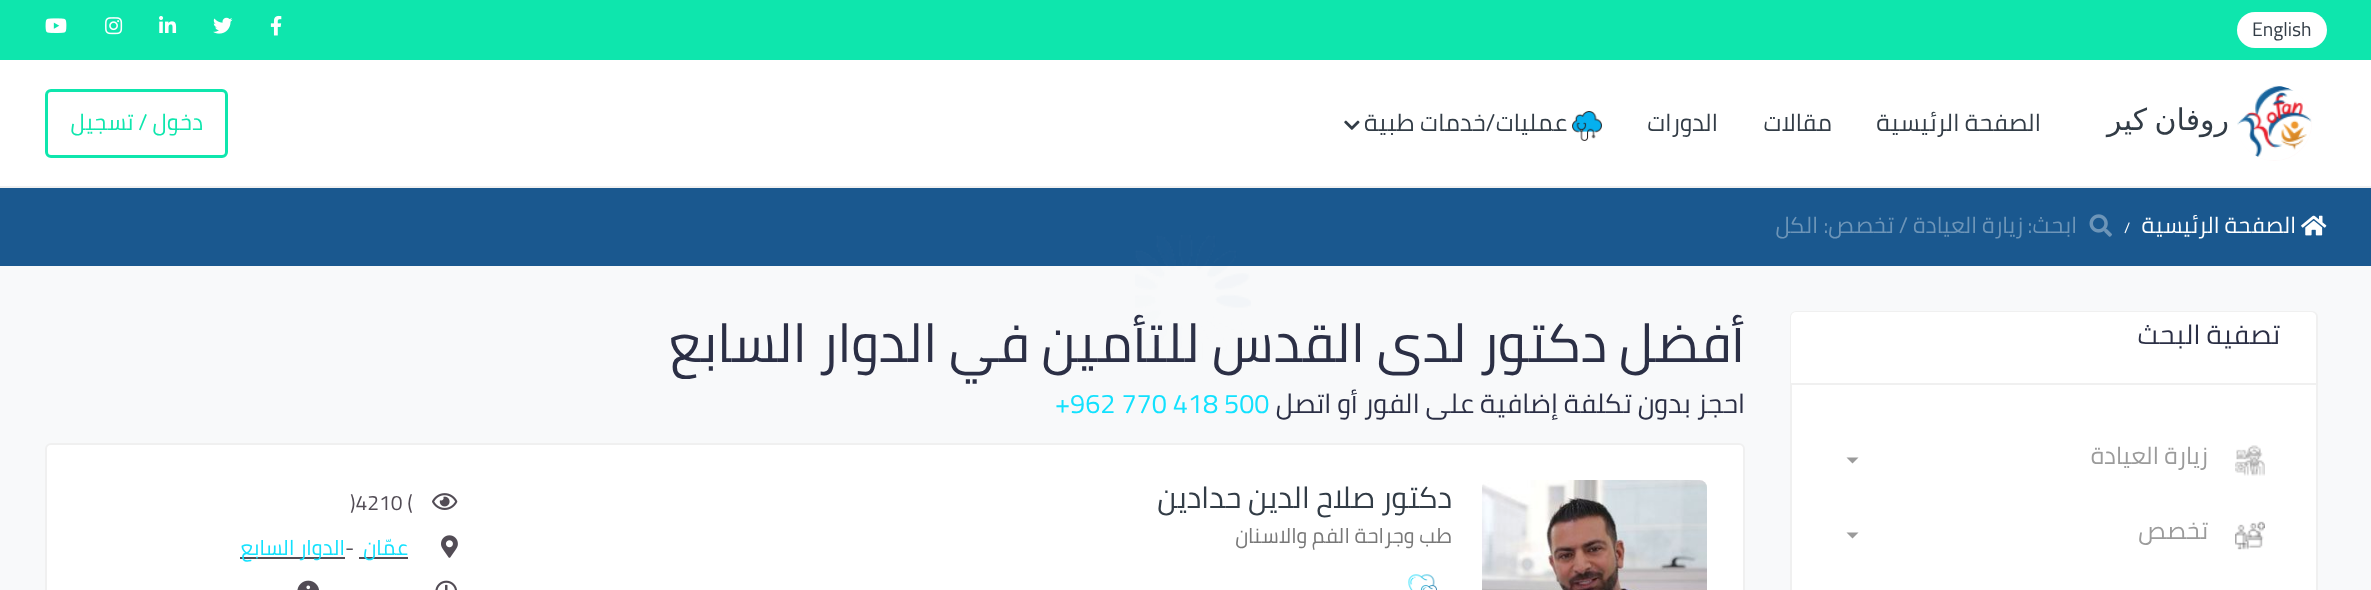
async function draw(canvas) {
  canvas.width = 2371
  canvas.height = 590
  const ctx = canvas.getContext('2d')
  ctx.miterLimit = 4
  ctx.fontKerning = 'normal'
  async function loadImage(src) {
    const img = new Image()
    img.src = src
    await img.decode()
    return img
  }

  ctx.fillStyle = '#f8f9fa'
  ctx.fillRect(0, 0, 2371, 590)
  ctx.fillStyle = '#0ee6ad'
  ctx.fillRect(0, 0, 2371, 60)
  ctx.fillStyle = '#fff'
  ctx.beginPath()
  ctx.roundRect(2237, 12, 90, 36, 18)
  ctx.fill()
  ctx.font = '19.5px Cairo'
  ctx.fillStyle = '#323c46'
  ctx.fillText('English', 2252, 36)
  ctx.drawImage(await loadImage('image0.png'), 270, 15, 12, 21)
  ctx.drawImage(await loadImage('image1.png'), 213, 17, 20, 17)
  ctx.drawImage(await loadImage('image2.png'), 159, 16, 18, 17)
  ctx.drawImage(await loadImage('image3.png'), 105, 17, 18, 18)
  ctx.drawImage(await loadImage('image4.png'), 45, 18, 22, 15)
  ctx.fillStyle = '#fff'
  ctx.fillRect(0, 60, 2371, 126)
  ctx.fillStyle = '#f0f0f0'
  ctx.fillRect(0, 186, 2371, 2)
  ctx.fillStyle = '#fffafa'
  ctx.beginPath()
  ctx.arc(2274.5, 123.5, 37.5, 0, 2 * Math.PI)
  ctx.fill()
  ctx.drawImage(await loadImage('image5.png'), 2237, 85, 75, 75)
  ctx.wordSpacing = '-2px'
  ctx.direction = 'rtl'
  ctx.font = '30px DejaVu Sans'
  ctx.fillStyle = '#323c46'
  ctx.fillText('روفان كير', 2229, 130)
  ctx.wordSpacing = '0px'
  ctx.font = '24px Cairo'
  ctx.fillText('الصفحة الرئيسية', 2041, 131)
  ctx.fillText('مقالات', 1832, 131)
  ctx.fillText('الدورات', 1718, 131)
  ctx.drawImage(await loadImage('image6.png'), 1572, 111, 30, 30)
  ctx.fillText('عمليات/خدمات طبية', 1567, 131)
  ctx.drawImage(await loadImage('image7.png'), 1344, 120, 16, 10)
  ctx.beginPath()
  ctx.roundRect(46.5, 90.5, 180, 66, 4.5)
  ctx.strokeStyle = '#0ee6ad'
  ctx.lineWidth = 3
  ctx.stroke()
  ctx.font = '22.5px Cairo'
  ctx.fillStyle = '#0ee6ad'
  ctx.fillText('دخول / تسجيل', 203, 130)
  ctx.fillStyle = '#1a588f'
  ctx.fillRect(0, 188, 2371, 78)
  ctx.drawImage(await loadImage('image8.png'), 2301, 215, 26, 21)
  ctx.fillStyle = '#fff'
  ctx.fillText('الصفحة الرئيسية', 2296, 233)
  ctx.direction = 'ltr'
  ctx.font = '15px Cairo'
  ctx.fillText('/', 2124, 233)
  ctx.drawImage(await loadImage('image9.png'), 2089, 214, 23, 23)
  ctx.direction = 'rtl'
  ctx.font = '22.5px Cairo'
  ctx.fillStyle = '#6d95b8'
  ctx.fillText('ابحث:', 2077, 233)
  ctx.fillText('زيارة العيادة', 2023, 233)
  ctx.fillText('/ تخصص:', 1908, 233)
  ctx.fillText('الكل', 1818, 233)
  ctx.font = '54px Cairo'
  ctx.fillStyle = '#2b2f45'
  ctx.fillText('لدى القدس للتأمين في الدوار السابع', 1467, 362)
  ctx.drawImage(await loadImage('image10.png'), 1135, 235, 116, 126)
  ctx.fillStyle = '#fff'
  ctx.beginPath()
  ctx.roundRect(1791, 312, 526, 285, 5)
  ctx.fill()
  ctx.strokeStyle = '#f0f0f0'
  ctx.lineWidth = 2
  ctx.stroke()
  ctx.beginPath()
  ctx.roundRect(1791, 312, 525, 72, [5, 5, 0, 0])
  ctx.fill()
  ctx.fillStyle = '#f0f0f0'
  ctx.fillRect(1791, 383, 525, 2)
  ctx.font = '27px Cairo'
  ctx.fillStyle = '#2b2f45'
  ctx.fillText('تصفية البحث', 2280, 344)
  ctx.drawImage(await loadImage('image11.png'), 2235, 445, 30, 31)
  ctx.font = '24px Cairo'
  ctx.fillStyle = '#9b9b9b'
  ctx.fillText('زيارة العيادة', 2208, 464)
  ctx.beginPath()
  ctx.moveTo(1846.5, 457.5)
  ctx.lineTo(1858.5, 457.5)
  ctx.lineTo(1852.5, 463.5)
  ctx.closePath()
  ctx.fill()
  ctx.drawImage(await loadImage('image12.png'), 2235, 521, 30, 29)
  ctx.fillText('تخصص', 2208, 539)
  ctx.beginPath()
  ctx.moveTo(1846.5, 532.5)
  ctx.lineTo(1858.5, 532.5)
  ctx.lineTo(1852.5, 538.5)
  ctx.closePath()
  ctx.fill()
  ctx.font = '54px Cairo'
  ctx.fillStyle = '#2b2f45'
  ctx.fillText('أفضل دكتور', 1745, 362)
  ctx.font = '27px Cairo'
  ctx.fillText('احجز بدون تكلفة إضافية على الفور أو اتصل', 1745, 413)
  ctx.direction = 'ltr'
  ctx.fillStyle = '#12e1fe'
  ctx.fillText('+962 770 418 500', 1055, 413)
  ctx.fillStyle = '#fff'
  ctx.beginPath()
  ctx.roundRect(46, 444, 1698, 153, 5)
  ctx.fill()
  ctx.stroke()
  ctx.drawImage(await loadImage('image13.png'), 1482, 480, 225, 110)
  ctx.direction = 'rtl'
  ctx.font = '30px Cairo'
  ctx.fillStyle = '#323c46'
  ctx.fillText('دكتور', 1452, 508)
  ctx.fillText('صلاح الدين حدادين', 1375, 508)
  ctx.font = '21px Cairo'
  ctx.fillStyle = '#787878'
  ctx.fillText('طب وجراحة الفم والاسنان', 1452, 543)
  ctx.drawImage(await loadImage('image14.png'), 1408, 574, 29, 16)
  ctx.drawImage(await loadImage('image15.png'), 432, 493, 26, 17)
  ctx.direction = 'ltr'
  ctx.fillStyle = '#524c55'
  ctx.fillText(')4210 (', 350, 510)
  ctx.drawImage(await loadImage('image16.png'), 441, 535, 17, 23)
  ctx.fillRect(359, 557, 49, 2)
  ctx.direction = 'rtl'
  ctx.fillStyle = '#12e1fe'
  ctx.fillText('عمّان', 408, 555)
  ctx.direction = 'ltr'
  ctx.fillStyle = '#524c55'
  ctx.fillText('-', 345, 555)
  ctx.fillRect(240, 557, 105, 2)
  ctx.direction = 'rtl'
  ctx.fillStyle = '#12e1fe'
  ctx.fillText('الدوار السابع', 345, 555)
  ctx.drawImage(await loadImage('image17.png'), 435, 580, 22, 10)
  ctx.drawImage(await loadImage('image18.png'), 297, 580, 22, 10)
}

draw(document.querySelector('canvas'))
